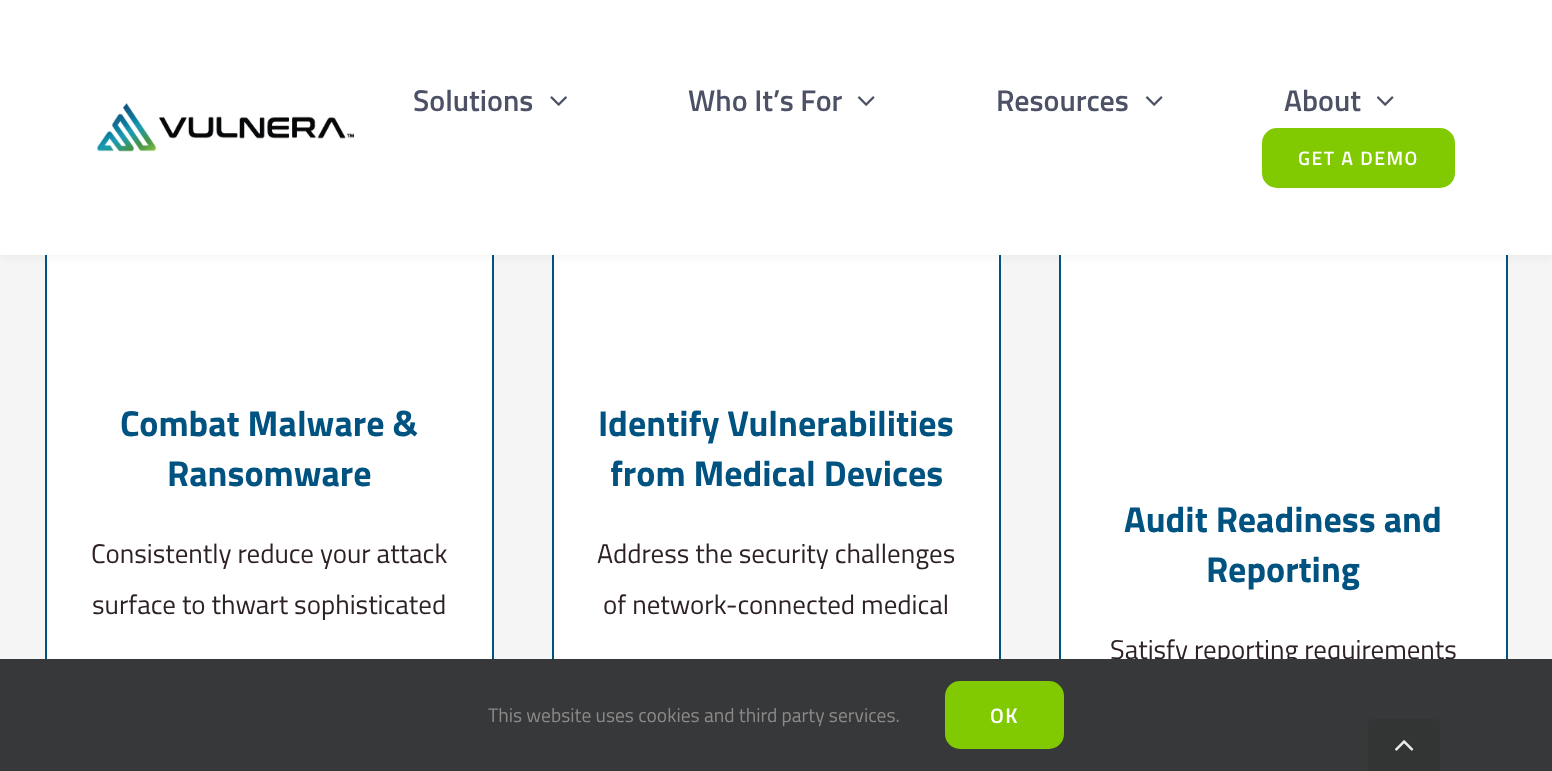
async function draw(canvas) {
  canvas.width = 1552
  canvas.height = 771
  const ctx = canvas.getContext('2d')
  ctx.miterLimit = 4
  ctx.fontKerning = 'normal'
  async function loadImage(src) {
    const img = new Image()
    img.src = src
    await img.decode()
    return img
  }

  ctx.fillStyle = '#f5f5f5'
  ctx.fillRect(0, 0, 1552, 771)
  ctx.fillStyle = '#fff'
  ctx.fillRect(47, 255, 445, 404)
  ctx.strokeStyle = '#005380'
  ctx.lineWidth = 2
  ctx.strokeRect(46, 223, 447, 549)
  ctx.fillRect(554, 255, 445, 404)
  ctx.strokeRect(553, 223, 447, 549)
  ctx.fillRect(1061, 255, 445, 404)
  ctx.strokeRect(1060, 223, 447, 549)
  ctx.fillStyle = '#50351f0d'
  ctx.filter = 'blur(4px)'
  ctx.beginPath()
  ctx.rect(0, 3, 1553, 255)
  ctx.fill()
  ctx.filter = 'none'
  ctx.fillStyle = '#fff'
  ctx.fillRect(0, 0, 1552, 255)
  ctx.drawImage(await loadImage('image0.png'), 97, 103, 257, 49)
  ctx.font = '600 30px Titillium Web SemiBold'
  ctx.fillStyle = '#4c5166'
  ctx.fillText('Solutions', 413, 111)
  ctx.drawImage(await loadImage('image1.png'), 550, 96, 17, 10)
  ctx.fillText('Who It’s For', 688, 111)
  ctx.drawImage(await loadImage('image2.png'), 857, 96, 18, 10)
  ctx.fillText('Resources', 996, 111)
  ctx.drawImage(await loadImage('image2.png'), 1145, 96, 18, 10)
  ctx.fillText('About', 1284, 111)
  ctx.drawImage(await loadImage('image2.png'), 1376, 96, 18, 10)
  ctx.fillStyle = '#81c900'
  ctx.beginPath()
  ctx.roundRect(1263, 129, 191, 58, 14)
  ctx.fill()
  ctx.strokeStyle = '#81c900'
  ctx.stroke()
  ctx.letterSpacing = '1.5px'
  ctx.font = '600 19.5px Titillium Web SemiBold'
  ctx.fillStyle = '#fff'
  ctx.fillText('GET A DEMO', 1298, 165)
  ctx.letterSpacing = '0px'
  ctx.font = 'bold 36px Titillium Web'
  ctx.fillStyle = '#005380'
  ctx.fillText('Combat Malware &', 120, 436)
  ctx.fillText('Ransomware', 167, 486)
  ctx.font = '27px Titillium Web'
  ctx.fillStyle = '#2d2125'
  ctx.fillText('Consistently reduce your attack', 91, 563)
  ctx.fillText('surface to thwart sophisticated', 92, 614)
  ctx.font = 'bold 36px Titillium Web'
  ctx.fillStyle = '#005380'
  ctx.fillText('Identify Vulnerabilities', 598, 436)
  ctx.fillText('from Medical Devices', 610, 486)
  ctx.font = '27px Titillium Web'
  ctx.fillStyle = '#2d2125'
  ctx.fillText('Address the security challenges', 597, 563)
  ctx.fillText('of network-connected medical', 603, 614)
  ctx.font = 'bold 36px Titillium Web'
  ctx.fillStyle = '#005380'
  ctx.fillText('Audit Readiness and', 1124, 532)
  ctx.fillText('Reporting', 1206, 582)
  ctx.font = '27px Titillium Web'
  ctx.fillStyle = '#2d2125'
  ctx.fillText('Satisfy reporting requirements', 1110, 659)
  ctx.fillStyle = '#363839'
  ctx.fillRect(0, 659, 1552, 112)
  ctx.font = '19.5px Titillium Web'
  ctx.fillStyle = '#8c8989'
  ctx.fillText('This website uses cookies and third party services.', 488, 722)
  ctx.fillStyle = '#81c900'
  ctx.beginPath()
  ctx.roundRect(946, 682, 117, 66, 14)
  ctx.fill()
  ctx.stroke()
  ctx.letterSpacing = '1.5px'
  ctx.font = '600 21px Titillium Web SemiBold'
  ctx.fillStyle = '#fff'
  ctx.fillText('OK', 990, 723)
  ctx.fillStyle = '#333434'
  ctx.beginPath()
  ctx.roundRect(1368, 719, 72, 52, [6, 6, 0, 0])
  ctx.fill()
  ctx.drawImage(await loadImage('image3.png'), 1395, 740, 19, 11)
}

draw(document.querySelector('canvas'))
